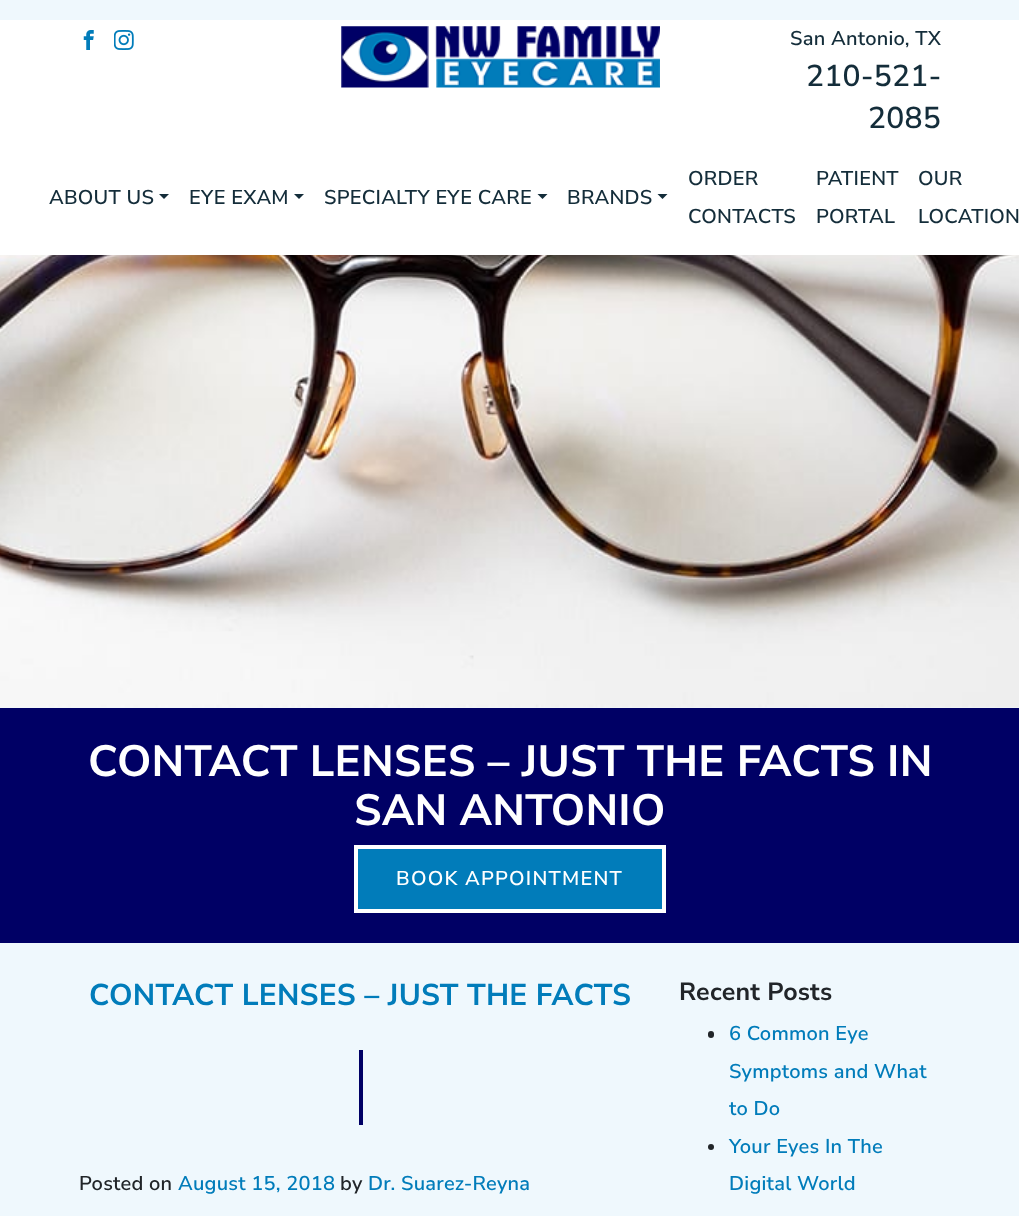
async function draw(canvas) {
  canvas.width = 1019
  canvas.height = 1216
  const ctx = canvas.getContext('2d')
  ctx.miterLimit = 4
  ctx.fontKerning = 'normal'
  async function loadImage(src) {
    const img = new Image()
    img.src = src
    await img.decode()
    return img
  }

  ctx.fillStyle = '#eff8fd'
  ctx.fillRect(0, 0, 1019, 1216)
  ctx.drawImage(await loadImage('image0.png'), 0, 255, 1019, 453)
  ctx.fillStyle = '#fff'
  ctx.fillRect(0, 20, 1019, 235)
  ctx.drawImage(await loadImage('image1.png'), 83, 30, 11, 20)
  ctx.drawImage(await loadImage('image2.png'), 114, 30, 20, 20)
  ctx.drawImage(await loadImage('image3.png'), 341, 26, 319, 62)
  ctx.letterSpacing = '0.25px'
  ctx.font = '600 20px Nunito Sans'
  ctx.fillStyle = '#142d3a'
  ctx.fillText('San Antonio, TX', 790, 45)
  ctx.font = '600 30px Nunito Sans'
  ctx.fillText('210-521-', 806, 86)
  ctx.fillText('2085', 868, 128)
  ctx.font = '600 20px Nunito Sans'
  ctx.fillText('ABOUT US', 49, 204)
  ctx.beginPath()
  ctx.moveTo(159, 194)
  ctx.lineTo(169, 194)
  ctx.lineTo(164, 199)
  ctx.closePath()
  ctx.fill()
  ctx.fillText('EYE EXAM', 189, 204)
  ctx.beginPath()
  ctx.moveTo(294, 194)
  ctx.lineTo(304, 194)
  ctx.lineTo(299, 199)
  ctx.closePath()
  ctx.fill()
  ctx.fillText('SPECIALTY EYE CARE', 324, 204)
  ctx.beginPath()
  ctx.moveTo(537.5, 194)
  ctx.lineTo(547.5, 194)
  ctx.lineTo(542.5, 199)
  ctx.closePath()
  ctx.fill()
  ctx.fillText('BRANDS', 567, 204)
  ctx.beginPath()
  ctx.moveTo(657.5, 194)
  ctx.lineTo(667.5, 194)
  ctx.lineTo(662.5, 199)
  ctx.closePath()
  ctx.fill()
  ctx.fillText('ORDER', 688, 185)
  ctx.fillText('CONTACTS', 688, 223)
  ctx.fillText('PATIENT', 816, 185)
  ctx.fillText('PORTAL', 816, 223)
  ctx.fillText('OUR', 918, 185)
  ctx.fillText('LOCATION', 918, 223)
  ctx.fillStyle = '#000065'
  ctx.fillRect(0, 708, 1019, 235)
  ctx.font = '200 43.75px Nunito Sans'
  ctx.fillStyle = '#fff'
  ctx.fillText('CONTACT LENSES – JUST THE FACTS IN', 88, 776)
  ctx.fillText('SAN ANTONIO', 354, 825)
  ctx.fillStyle = '#017cba'
  ctx.beginPath()
  ctx.rect(356, 847, 308, 64)
  ctx.fill()
  ctx.strokeStyle = '#fff'
  ctx.lineWidth = 4
  ctx.stroke()
  ctx.letterSpacing = '1.25px'
  ctx.font = '600 20px Nunito Sans'
  ctx.fillStyle = '#fff'
  ctx.fillText('BOOK APPOINTMENT', 396, 885)
  ctx.letterSpacing = '0.25px'
  ctx.font = '200 30px Nunito Sans'
  ctx.fillStyle = '#017cba'
  ctx.fillText('CONTACT LENSES – JUST THE FACTS', 89, 1005)
  ctx.fillStyle = '#000065'
  ctx.fillRect(359, 1050, 4, 75)
  ctx.font = '600 20px Nunito Sans'
  ctx.fillStyle = '#212529'
  ctx.fillText('Posted on', 79, 1190)
  ctx.fillStyle = '#017cba'
  ctx.fillText('August 15, 2018', 178, 1190)
  ctx.fillStyle = '#212529'
  ctx.fillText('by', 340, 1190)
  ctx.fillStyle = '#017cba'
  ctx.fillText('Dr. Suarez-Reyna', 368, 1190)
  ctx.font = '200 25px Nunito Sans'
  ctx.fillStyle = '#212529'
  ctx.fillText('Recent Posts', 679, 1000)
  ctx.beginPath()
  ctx.roundRect(708, 1031, 6, 7, 3)
  ctx.fill()
  ctx.font = '600 20px Nunito Sans'
  ctx.fillStyle = '#017cba'
  ctx.fillText('6 Common Eye', 729, 1040)
  ctx.fillText('Symptoms and What', 729, 1078)
  ctx.fillText('to Do', 729, 1115)
  ctx.fillStyle = '#212529'
  ctx.beginPath()
  ctx.arc(711, 1147, 3, 0, 2 * Math.PI)
  ctx.fill()
  ctx.fillStyle = '#017cba'
  ctx.fillText('Your Eyes In The', 729, 1153)
  ctx.fillText('Digital World', 729, 1190)
}

draw(document.querySelector('canvas'))
